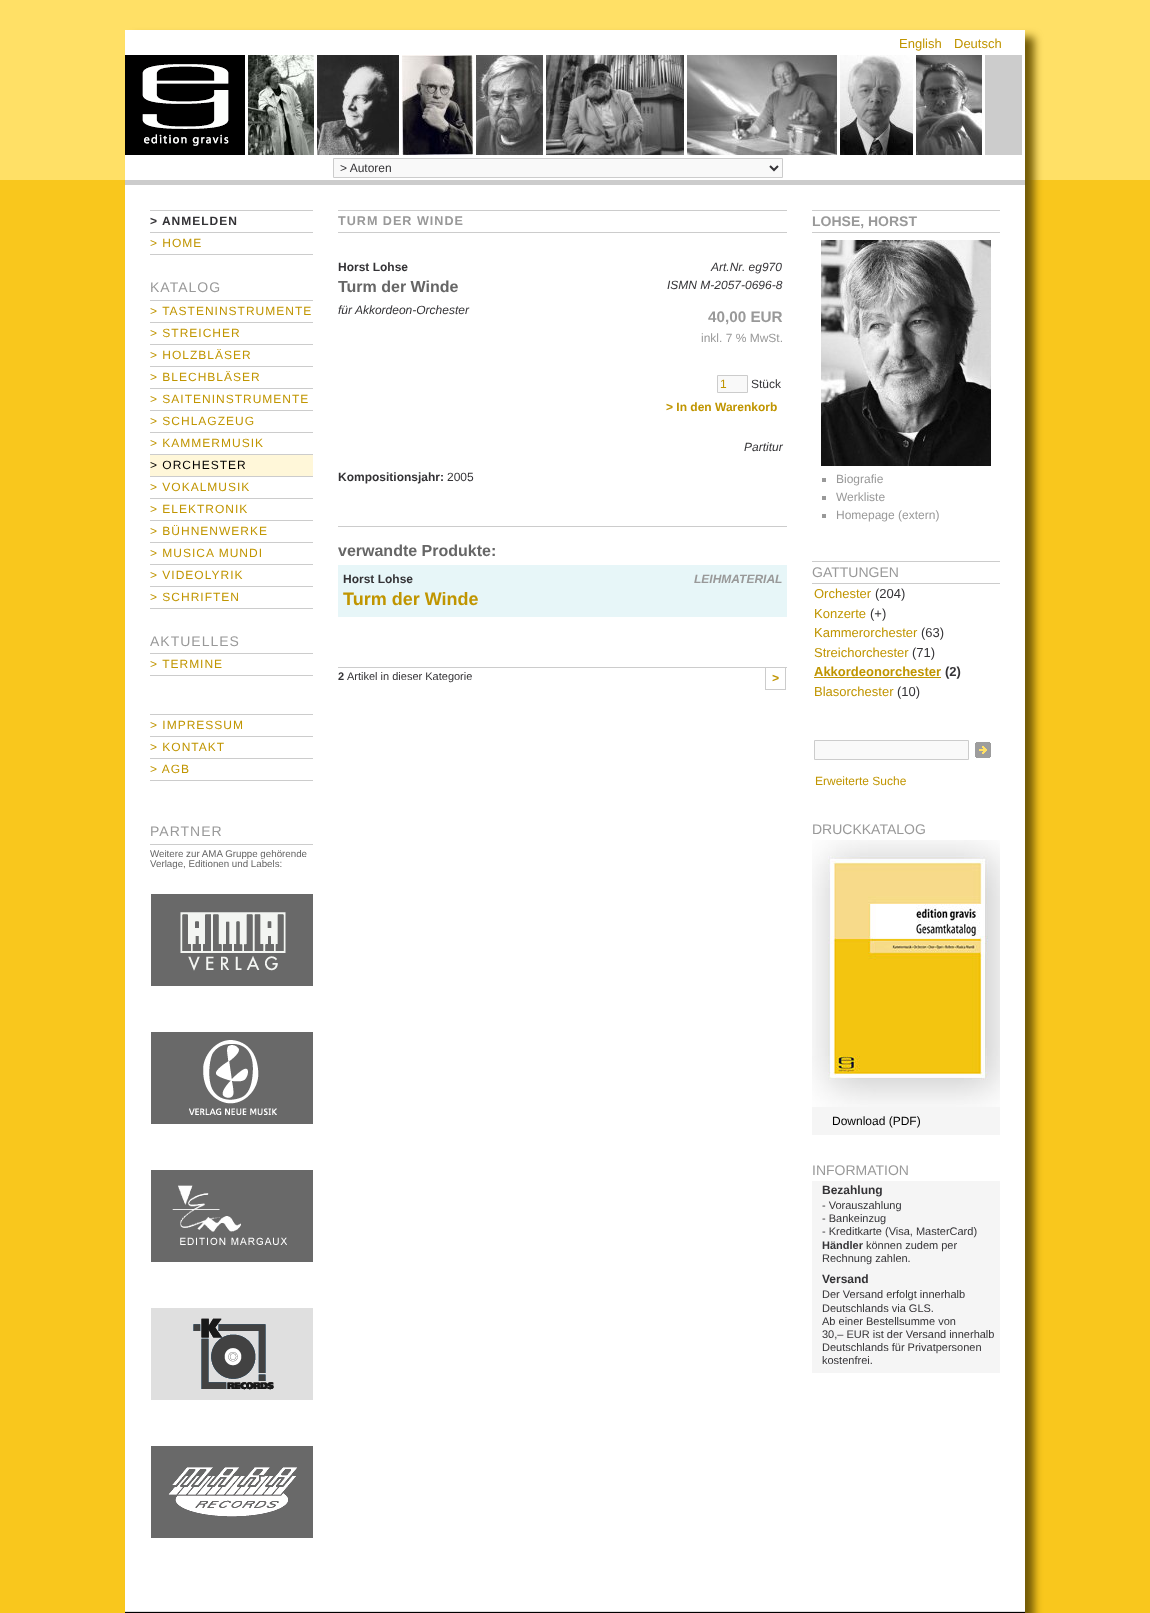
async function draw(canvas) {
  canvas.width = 1150
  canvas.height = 1613
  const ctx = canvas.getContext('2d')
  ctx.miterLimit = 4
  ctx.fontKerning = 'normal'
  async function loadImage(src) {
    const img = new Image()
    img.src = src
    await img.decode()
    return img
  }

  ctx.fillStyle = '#f9c71d'
  ctx.fillRect(0, 0, 1150, 1613)
  ctx.fillStyle = '#ffe066'
  ctx.fillRect(0, 0, 1150, 180)
  ctx.fillStyle = '#735b06'
  ctx.filter = 'blur(4.5px)'
  ctx.beginPath()
  ctx.rect(134, 37, 900, 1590)
  ctx.fill()
  ctx.filter = 'none'
  ctx.fillStyle = '#fff'
  ctx.fillRect(125, 30, 900, 150)
  ctx.font = '13px Liberation Sans'
  ctx.fillStyle = '#c09500'
  ctx.fillText('English', 899, 48)
  ctx.fillText('Deutsch', 954, 48)
  ctx.drawImage(await loadImage('image0.png'), 125, 55, 120, 100)
  ctx.drawImage(await loadImage('image1.png'), 248, 55, 66, 100)
  ctx.drawImage(await loadImage('image2.png'), 317, 55, 82, 100)
  ctx.drawImage(await loadImage('image3.png'), 402, 55, 71, 100)
  ctx.drawImage(await loadImage('image4.png'), 476, 55, 67, 100)
  ctx.drawImage(await loadImage('image5.png'), 546, 55, 138, 100)
  ctx.drawImage(await loadImage('image6.png'), 687, 55, 150, 100)
  ctx.drawImage(await loadImage('image7.png'), 840, 55, 73, 100)
  ctx.drawImage(await loadImage('image8.png'), 916, 55, 66, 100)
  ctx.fillStyle = '#ccc'
  ctx.fillRect(985, 55, 37, 100)
  ctx.fillStyle = '#f9f9f9'
  ctx.beginPath()
  ctx.rect(333.5, 158.5, 449, 19)
  ctx.fill()
  ctx.strokeStyle = '#ccc'
  ctx.stroke()
  ctx.beginPath()
  ctx.moveTo(770, 166)
  ctx.lineTo(774, 170)
  ctx.lineTo(778, 166)
  ctx.strokeStyle = '#343336'
  ctx.lineWidth = 2
  ctx.stroke()
  ctx.font = '12px Liberation Sans'
  ctx.fillStyle = '#343336'
  ctx.fillText('> Autoren', 340, 172)
  ctx.fillStyle = '#fff'
  ctx.fillRect(125, 185, 900, 1426)
  ctx.fillStyle = '#ccc'
  ctx.fillRect(125, 180, 900, 5)
  ctx.fillRect(150, 210, 163, 1)
  ctx.fillRect(150, 232, 163, 1)
  ctx.letterSpacing = '1px'
  ctx.font = 'bold 12px Liberation Sans'
  ctx.fillStyle = '#343336'
  ctx.fillText('> ANMELDEN', 150, 225)
  ctx.fillStyle = '#ccc'
  ctx.fillRect(150, 254, 163, 1)
  ctx.font = '12px Liberation Sans'
  ctx.fillStyle = '#c09500'
  ctx.fillText('> HOME', 150, 247)
  ctx.font = '14px Liberation Sans'
  ctx.fillStyle = '#999'
  ctx.fillText('KATALOG', 150, 292)
  ctx.fillStyle = '#ccc'
  ctx.fillRect(150, 300, 163, 1)
  ctx.fillRect(150, 322, 163, 1)
  ctx.font = '12px Liberation Sans'
  ctx.fillStyle = '#c09500'
  ctx.fillText('> TASTENINSTRUMENTE', 150, 315)
  ctx.fillStyle = '#ccc'
  ctx.fillRect(150, 344, 163, 1)
  ctx.fillStyle = '#c09500'
  ctx.fillText('> STREICHER', 150, 337)
  ctx.fillStyle = '#ccc'
  ctx.fillRect(150, 366, 163, 1)
  ctx.fillStyle = '#c09500'
  ctx.fillText('> HOLZBLÄSER', 150, 359)
  ctx.fillStyle = '#ccc'
  ctx.fillRect(150, 388, 163, 1)
  ctx.fillStyle = '#c09500'
  ctx.fillText('> BLECHBLÄSER', 150, 381)
  ctx.fillStyle = '#ccc'
  ctx.fillRect(150, 410, 163, 1)
  ctx.fillStyle = '#c09500'
  ctx.fillText('> SAITENINSTRUMENTE', 150, 403)
  ctx.fillStyle = '#ccc'
  ctx.fillRect(150, 432, 163, 1)
  ctx.fillStyle = '#c09500'
  ctx.fillText('> SCHLAGZEUG', 150, 425)
  ctx.fillStyle = '#ccc'
  ctx.fillRect(150, 454, 163, 1)
  ctx.fillStyle = '#c09500'
  ctx.fillText('> KAMMERMUSIK', 150, 447)
  ctx.fillStyle = '#fff7d9'
  ctx.fillRect(150, 455, 163, 21)
  ctx.fillStyle = '#ccc'
  ctx.fillRect(150, 476, 163, 1)
  ctx.fillStyle = '#000'
  ctx.fillText('> ORCHESTER', 150, 469)
  ctx.fillStyle = '#ccc'
  ctx.fillRect(150, 498, 163, 1)
  ctx.fillStyle = '#c09500'
  ctx.fillText('> VOKALMUSIK', 150, 491)
  ctx.fillStyle = '#ccc'
  ctx.fillRect(150, 520, 163, 1)
  ctx.fillStyle = '#c09500'
  ctx.fillText('> ELEKTRONIK', 150, 513)
  ctx.fillStyle = '#ccc'
  ctx.fillRect(150, 542, 163, 1)
  ctx.fillStyle = '#c09500'
  ctx.fillText('> BÜHNENWERKE', 150, 535)
  ctx.fillStyle = '#ccc'
  ctx.fillRect(150, 564, 163, 1)
  ctx.fillStyle = '#c09500'
  ctx.fillText('> MUSICA MUNDI', 150, 557)
  ctx.fillStyle = '#ccc'
  ctx.fillRect(150, 586, 163, 1)
  ctx.fillStyle = '#c09500'
  ctx.fillText('> VIDEOLYRIK', 150, 579)
  ctx.fillStyle = '#ccc'
  ctx.fillRect(150, 608, 163, 1)
  ctx.fillStyle = '#c09500'
  ctx.fillText('> SCHRIFTEN', 150, 601)
  ctx.font = '14px Liberation Sans'
  ctx.fillStyle = '#999'
  ctx.fillText('AKTUELLES', 150, 646)
  ctx.fillStyle = '#ccc'
  ctx.fillRect(150, 653, 163, 1)
  ctx.fillRect(150, 675, 163, 1)
  ctx.font = '12px Liberation Sans'
  ctx.fillStyle = '#c09500'
  ctx.fillText('> TERMINE', 150, 668)
  ctx.fillStyle = '#ccc'
  ctx.fillRect(150, 714, 163, 1)
  ctx.fillRect(150, 736, 163, 1)
  ctx.fillStyle = '#c09500'
  ctx.fillText('> IMPRESSUM', 150, 729)
  ctx.fillStyle = '#ccc'
  ctx.fillRect(150, 758, 163, 1)
  ctx.fillStyle = '#c09500'
  ctx.fillText('> KONTAKT', 150, 751)
  ctx.fillStyle = '#ccc'
  ctx.fillRect(150, 780, 163, 1)
  ctx.fillStyle = '#c09500'
  ctx.fillText('> AGB', 150, 773)
  ctx.font = '14px Liberation Sans'
  ctx.fillStyle = '#999'
  ctx.fillText('PARTNER', 150, 836)
  ctx.fillStyle = '#ccc'
  ctx.fillRect(150, 844, 163, 1)
  ctx.letterSpacing = '0px'
  ctx.font = '9.75px Liberation Sans'
  ctx.fillStyle = '#666'
  ctx.fillText('Weitere zur AMA Gruppe gehörende', 150, 857)
  ctx.fillText('Verlage, Editionen und Labels:', 150, 867)
  ctx.drawImage(await loadImage('image9.png'), 151, 894, 162, 92)
  ctx.drawImage(await loadImage('image10.png'), 151, 1032, 162, 92)
  ctx.drawImage(await loadImage('image11.png'), 151, 1170, 162, 92)
  ctx.drawImage(await loadImage('image12.png'), 151, 1308, 162, 92)
  ctx.drawImage(await loadImage('image13.png'), 151, 1446, 162, 92)
  ctx.fillStyle = '#ccc'
  ctx.fillRect(338, 210, 449, 1)
  ctx.fillRect(338, 232, 449, 1)
  ctx.letterSpacing = '1px'
  ctx.font = 'bold 12.6px Liberation Sans'
  ctx.fillStyle = '#999'
  ctx.fillText('TURM DER WINDE', 338, 225)
  ctx.letterSpacing = '0px'
  ctx.font = 'bold 12px Liberation Sans'
  ctx.fillStyle = '#343336'
  ctx.fillText('Horst Lohse', 338, 271)
  ctx.font = 'bold 16px Liberation Sans'
  ctx.fillStyle = '#666'
  ctx.fillText('Turm der Winde', 338, 292)
  ctx.font = 'italic 12px Liberation Sans'
  ctx.fillStyle = '#343336'
  ctx.fillText('für Akkordeon-Orchester', 338, 314)
  ctx.fillText('Art.Nr. eg970', 711, 271)
  ctx.fillText('ISMN M-2057-0696-8', 667, 289)
  ctx.font = 'bold 15.25px Liberation Sans'
  ctx.fillStyle = '#999'
  ctx.fillText('40,00 EUR', 708, 322)
  ctx.font = '12px Liberation Sans'
  ctx.fillText('inkl. 7 % MwSt.', 701, 342)
  ctx.fillStyle = '#f9f9f9'
  ctx.beginPath()
  ctx.rect(717.5, 375.5, 30, 17)
  ctx.fill()
  ctx.strokeStyle = '#ccc'
  ctx.lineWidth = 1
  ctx.stroke()
  ctx.fillStyle = '#c09500'
  ctx.fillText('1', 720, 388)
  ctx.fillStyle = '#343336'
  ctx.fillText('Stück', 751, 388)
  ctx.font = 'bold 12px Liberation Sans'
  ctx.fillStyle = '#c09500'
  ctx.fillText('> In den Warenkorb', 666, 411)
  ctx.font = 'italic 12px Liberation Sans'
  ctx.fillStyle = '#343336'
  ctx.fillText('Partitur', 744, 451)
  ctx.font = 'bold 12px Liberation Sans'
  ctx.fillText('Kompositionsjahr:', 338, 481)
  ctx.font = '12px Liberation Sans'
  ctx.fillText('2005', 447, 481)
  ctx.fillStyle = '#ccc'
  ctx.fillRect(338, 526, 449, 1)
  ctx.font = 'bold 16px Liberation Sans'
  ctx.fillStyle = '#666'
  ctx.fillText('verwandte Produkte:', 338, 556)
  ctx.fillStyle = '#e7f6f8'
  ctx.fillRect(338, 565, 449, 52)
  ctx.font = 'bold 12px Liberation Sans'
  ctx.fillStyle = '#343336'
  ctx.fillText('Horst Lohse', 343, 583)
  ctx.font = 'italic bold 12px Liberation Sans'
  ctx.fillStyle = '#999'
  ctx.fillText('LEIHMATERIAL', 694, 583)
  ctx.font = 'bold 18px Liberation Sans'
  ctx.fillStyle = '#c09500'
  ctx.fillText('Turm der Winde', 343, 605)
  ctx.fillStyle = '#ccc'
  ctx.fillRect(338, 667, 449, 1)
  ctx.font = 'bold 11px Liberation Sans'
  ctx.fillStyle = '#343336'
  ctx.fillText('2', 338, 680)
  ctx.font = '11px Liberation Sans'
  ctx.fillText('Artikel in dieser Kategorie', 347, 680)
  ctx.fillStyle = '#ccc'
  ctx.fillRect(785, 668, 1, 22)
  ctx.fillRect(765, 689, 21, 1)
  ctx.fillRect(765, 668, 1, 22)
  ctx.font = 'bold 12px Liberation Mono'
  ctx.fillStyle = '#c09500'
  ctx.fillText('>', 772, 682)
  ctx.fillStyle = '#ccc'
  ctx.fillRect(812, 210, 188, 1)
  ctx.fillRect(812, 232, 188, 1)
  ctx.font = 'bold 14px Liberation Sans'
  ctx.fillStyle = '#999'
  ctx.fillText('LOHSE, HORST', 812, 226)
  ctx.drawImage(await loadImage('image14.png'), 821, 240, 170, 226)
  ctx.fillRect(822, 478, 4, 4)
  ctx.font = '12px Liberation Sans'
  ctx.fillText('Biografie', 836, 483)
  ctx.fillRect(822, 496, 4, 4)
  ctx.fillText('Werkliste', 836, 501)
  ctx.fillRect(822, 514, 4, 4)
  ctx.fillText('Homepage (extern)', 836, 519)
  ctx.fillStyle = '#ccc'
  ctx.fillRect(812, 561, 188, 1)
  ctx.fillRect(812, 583, 188, 1)
  ctx.font = '14px Liberation Sans'
  ctx.fillStyle = '#999'
  ctx.fillText('GATTUNGEN', 812, 577)
  ctx.font = '13px Liberation Sans'
  ctx.fillStyle = '#c09500'
  ctx.fillText('Orchester', 814, 598)
  ctx.fillStyle = '#343336'
  ctx.fillText('(204)', 875, 598)
  ctx.fillStyle = '#c09500'
  ctx.fillText('Konzerte', 814, 618)
  ctx.fillStyle = '#343336'
  ctx.fillText('(+)', 870, 618)
  ctx.fillStyle = '#c09500'
  ctx.fillText('Kammerorchester', 814, 637)
  ctx.fillStyle = '#343336'
  ctx.fillText('(63)', 921, 637)
  ctx.fillStyle = '#c09500'
  ctx.fillText('Streichorchester', 814, 657)
  ctx.fillStyle = '#343336'
  ctx.fillText('(71)', 912, 657)
  ctx.font = 'bold 13px Liberation Sans'
  ctx.fillStyle = '#c09500'
  ctx.fillText('Akkordeonorchester', 814, 676)
  ctx.fillRect(814, 677, 127, 1)
  ctx.fillStyle = '#343336'
  ctx.fillText('(2)', 945, 676)
  ctx.font = '13px Liberation Sans'
  ctx.fillStyle = '#c09500'
  ctx.fillText('Blasorchester', 814, 696)
  ctx.fillStyle = '#343336'
  ctx.fillText('(10)', 897, 696)
  ctx.fillStyle = '#f9f9f9'
  ctx.beginPath()
  ctx.rect(814.5, 740.5, 154, 19)
  ctx.fill()
  ctx.stroke()
  ctx.drawImage(await loadImage('image15.png'), 975, 742, 16, 16)
  ctx.font = '12px Liberation Sans'
  ctx.fillStyle = '#c09500'
  ctx.fillText('Erweiterte Suche', 815, 785)
  ctx.font = '14px Liberation Sans'
  ctx.fillStyle = '#999'
  ctx.fillText('DRUCKKATALOG', 812, 834)
  ctx.fillStyle = '#f5f5f5'
  ctx.fillRect(812, 1107, 188, 28)
  ctx.drawImage(await loadImage('image16.png'), 812, 840, 188, 267)
  ctx.font = '12px Liberation Sans'
  ctx.fillStyle = '#000'
  ctx.fillText('Download (PDF)', 832, 1125)
  ctx.font = '14px Liberation Sans'
  ctx.fillStyle = '#999'
  ctx.fillText('INFORMATION', 812, 1175)
  ctx.fillStyle = '#f5f5f5'
  ctx.fillRect(812, 1181, 188, 192)
  ctx.font = 'bold 12px Liberation Sans'
  ctx.fillStyle = '#343336'
  ctx.fillText('Bezahlung', 822, 1194)
  ctx.font = '11px Liberation Sans'
  ctx.fillText('- Vorauszahlung', 822, 1209)
  ctx.fillText('- Bankeinzug', 822, 1222)
  ctx.fillText('- Kreditkarte (Visa, MasterCard)', 822, 1235)
  ctx.font = 'bold 11px Liberation Sans'
  ctx.fillText('Händler', 822, 1249)
  ctx.font = '11px Liberation Sans'
  ctx.fillText('können zudem per', 866, 1249)
  ctx.fillText('Rechnung zahlen.', 822, 1262)
  ctx.font = 'bold 12px Liberation Sans'
  ctx.fillText('Versand', 822, 1283)
  ctx.font = '11px Liberation Sans'
  ctx.fillText('Der Versand erfolgt innerhalb', 822, 1298)
  ctx.fillText('Deutschlands via GLS.', 822, 1312)
  ctx.fillText('Ab einer Bestellsumme von', 822, 1325)
  ctx.fillText('30,– EUR ist der Versand innerhalb', 822, 1338)
  ctx.fillText('Deutschlands für Privatpersonen', 822, 1351)
  ctx.fillText('kostenfrei.', 822, 1364)
  ctx.fillStyle = '#000'
  ctx.fillRect(125, 1612, 900, 1)
  ctx.fillStyle = '#ddd'
  ctx.fillRect(125, 1611, 900, 1)
}

draw(document.querySelector('canvas'))
